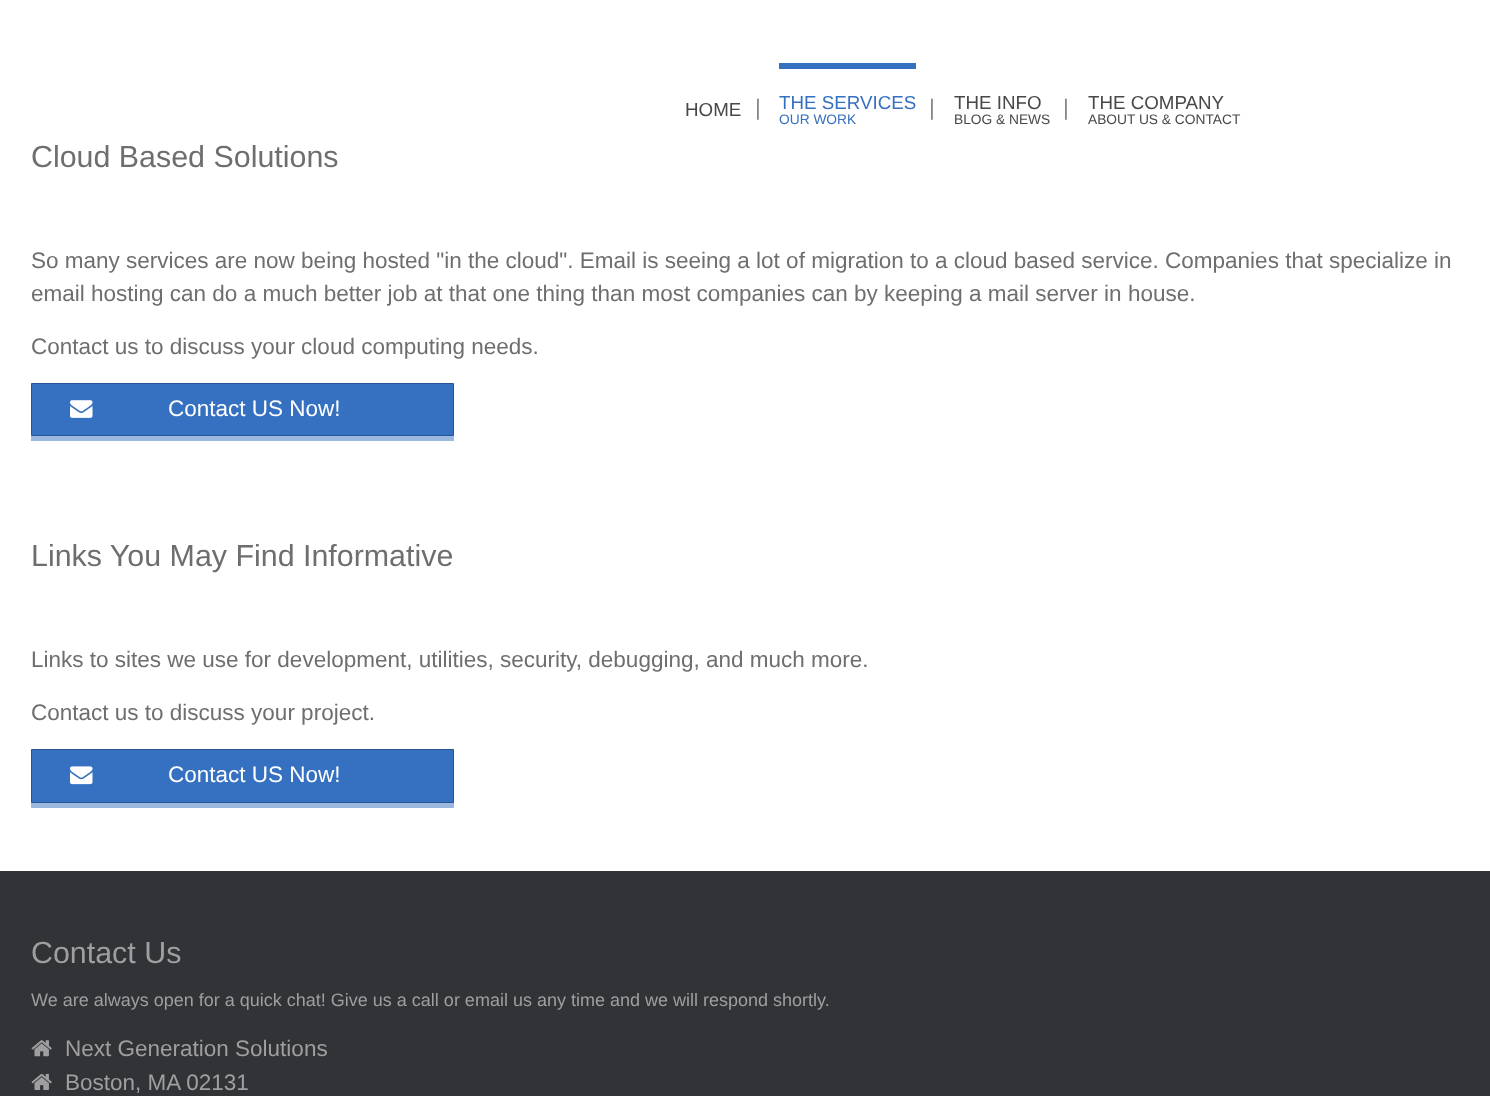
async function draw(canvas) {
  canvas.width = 1490
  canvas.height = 1096
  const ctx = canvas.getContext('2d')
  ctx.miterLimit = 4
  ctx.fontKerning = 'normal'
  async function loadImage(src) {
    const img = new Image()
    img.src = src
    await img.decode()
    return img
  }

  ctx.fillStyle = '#fff'
  ctx.fillRect(0, 0, 1490, 1096)
  ctx.font = '18.75px Liberation Sans'
  ctx.fillStyle = '#494848'
  ctx.fillText('HOME', 685, 116)
  ctx.font = '22.5px Liberation Sans'
  ctx.fillStyle = '#898788'
  ctx.fillText('|', 755, 115)
  ctx.fillStyle = '#3570c1'
  ctx.fillRect(779, 63, 137, 6)
  ctx.font = '18.75px Liberation Sans'
  ctx.fillText('THE SERVICES', 779, 109)
  ctx.font = '13.75px Liberation Sans'
  ctx.fillText('OUR WORK', 779, 124)
  ctx.font = '22.5px Liberation Sans'
  ctx.fillStyle = '#898788'
  ctx.fillText('|', 929, 115)
  ctx.font = '18.75px Liberation Sans'
  ctx.fillStyle = '#494848'
  ctx.fillText('THE INFO', 954, 109)
  ctx.font = '13.75px Liberation Sans'
  ctx.fillText('BLOG & NEWS', 954, 124)
  ctx.font = '22.5px Liberation Sans'
  ctx.fillStyle = '#898788'
  ctx.fillText('|', 1063, 115)
  ctx.font = '18.75px Liberation Sans'
  ctx.fillStyle = '#494848'
  ctx.fillText('THE COMPANY', 1088, 109)
  ctx.font = '13.75px Liberation Sans'
  ctx.fillText('ABOUT US & CONTACT', 1088, 124)
  ctx.font = '30.4px Liberation Sans'
  ctx.fillStyle = '#6e6e6e'
  ctx.fillText('Cloud Based Solutions', 31, 167)
  ctx.font = '22.5px Liberation Sans'
  ctx.fillText('So many services are now being hosted "in the cloud". Email is seeing a lot of migration to a cloud based service. Companies that specialize in', 31, 268)
  ctx.fillText('email hosting can do a much better job at that one thing than most companies can by keeping a mail server in house.', 31, 301)
  ctx.fillText('Contact us to discuss your cloud computing needs.', 31, 354)
  ctx.fillStyle = '#9ab8e0'
  ctx.beginPath()
  ctx.moveTo(31, 388)
  ctx.lineTo(31, 441)
  ctx.lineTo(454, 441)
  ctx.lineTo(454, 388)
  ctx.lineTo(454, 436)
  ctx.lineTo(31, 436)
  ctx.closePath()
  ctx.fill()
  ctx.fillStyle = '#3570c1'
  ctx.beginPath()
  ctx.rect(31.5, 383.5, 422, 52)
  ctx.fill()
  ctx.strokeStyle = '#285491'
  ctx.stroke()
  ctx.drawImage(await loadImage('image0.png'), 70, 400, 23, 18)
  ctx.fillStyle = '#fff'
  ctx.fillText('Contact US Now!', 168, 416)
  ctx.font = '30.4px Liberation Sans'
  ctx.fillStyle = '#6e6e6e'
  ctx.fillText('Links You May Find Informative', 31, 566)
  ctx.font = '22.5px Liberation Sans'
  ctx.fillText('Links to sites we use for development, utilities, security, debugging, and much more.', 31, 667)
  ctx.fillText('Contact us to discuss your project.', 31, 720)
  ctx.fillStyle = '#9ab8e0'
  ctx.beginPath()
  ctx.moveTo(31, 754)
  ctx.lineTo(31, 808)
  ctx.lineTo(454, 808)
  ctx.lineTo(454, 754)
  ctx.lineTo(454, 802)
  ctx.lineTo(31, 802)
  ctx.closePath()
  ctx.fill()
  ctx.fillStyle = '#3570c1'
  ctx.beginPath()
  ctx.rect(31.5, 749.5, 422, 53)
  ctx.fill()
  ctx.stroke()
  ctx.drawImage(await loadImage('image1.png'), 70, 766, 23, 19)
  ctx.fillStyle = '#fff'
  ctx.fillText('Contact US Now!', 168, 782)
  ctx.fillStyle = '#323337'
  ctx.fillRect(0, 871, 1490, 225)
  ctx.font = '30.4px Liberation Sans'
  ctx.fillStyle = '#9f9fa1'
  ctx.fillText('Contact Us', 31, 963)
  ctx.font = '18px Liberation Sans'
  ctx.fillText('We are always open for a quick chat! Give us a call or email us any time and we will respond shortly.', 31, 1006)
  ctx.drawImage(await loadImage('image2.png'), 31, 1040, 21, 17)
  ctx.font = '22.5px Liberation Sans'
  ctx.fillText('Next Generation Solutions', 65, 1056)
  ctx.drawImage(await loadImage('image3.png'), 31, 1073, 21, 17)
  ctx.fillText('Boston, MA 02131', 65, 1090)
}

draw(document.querySelector('canvas'))
